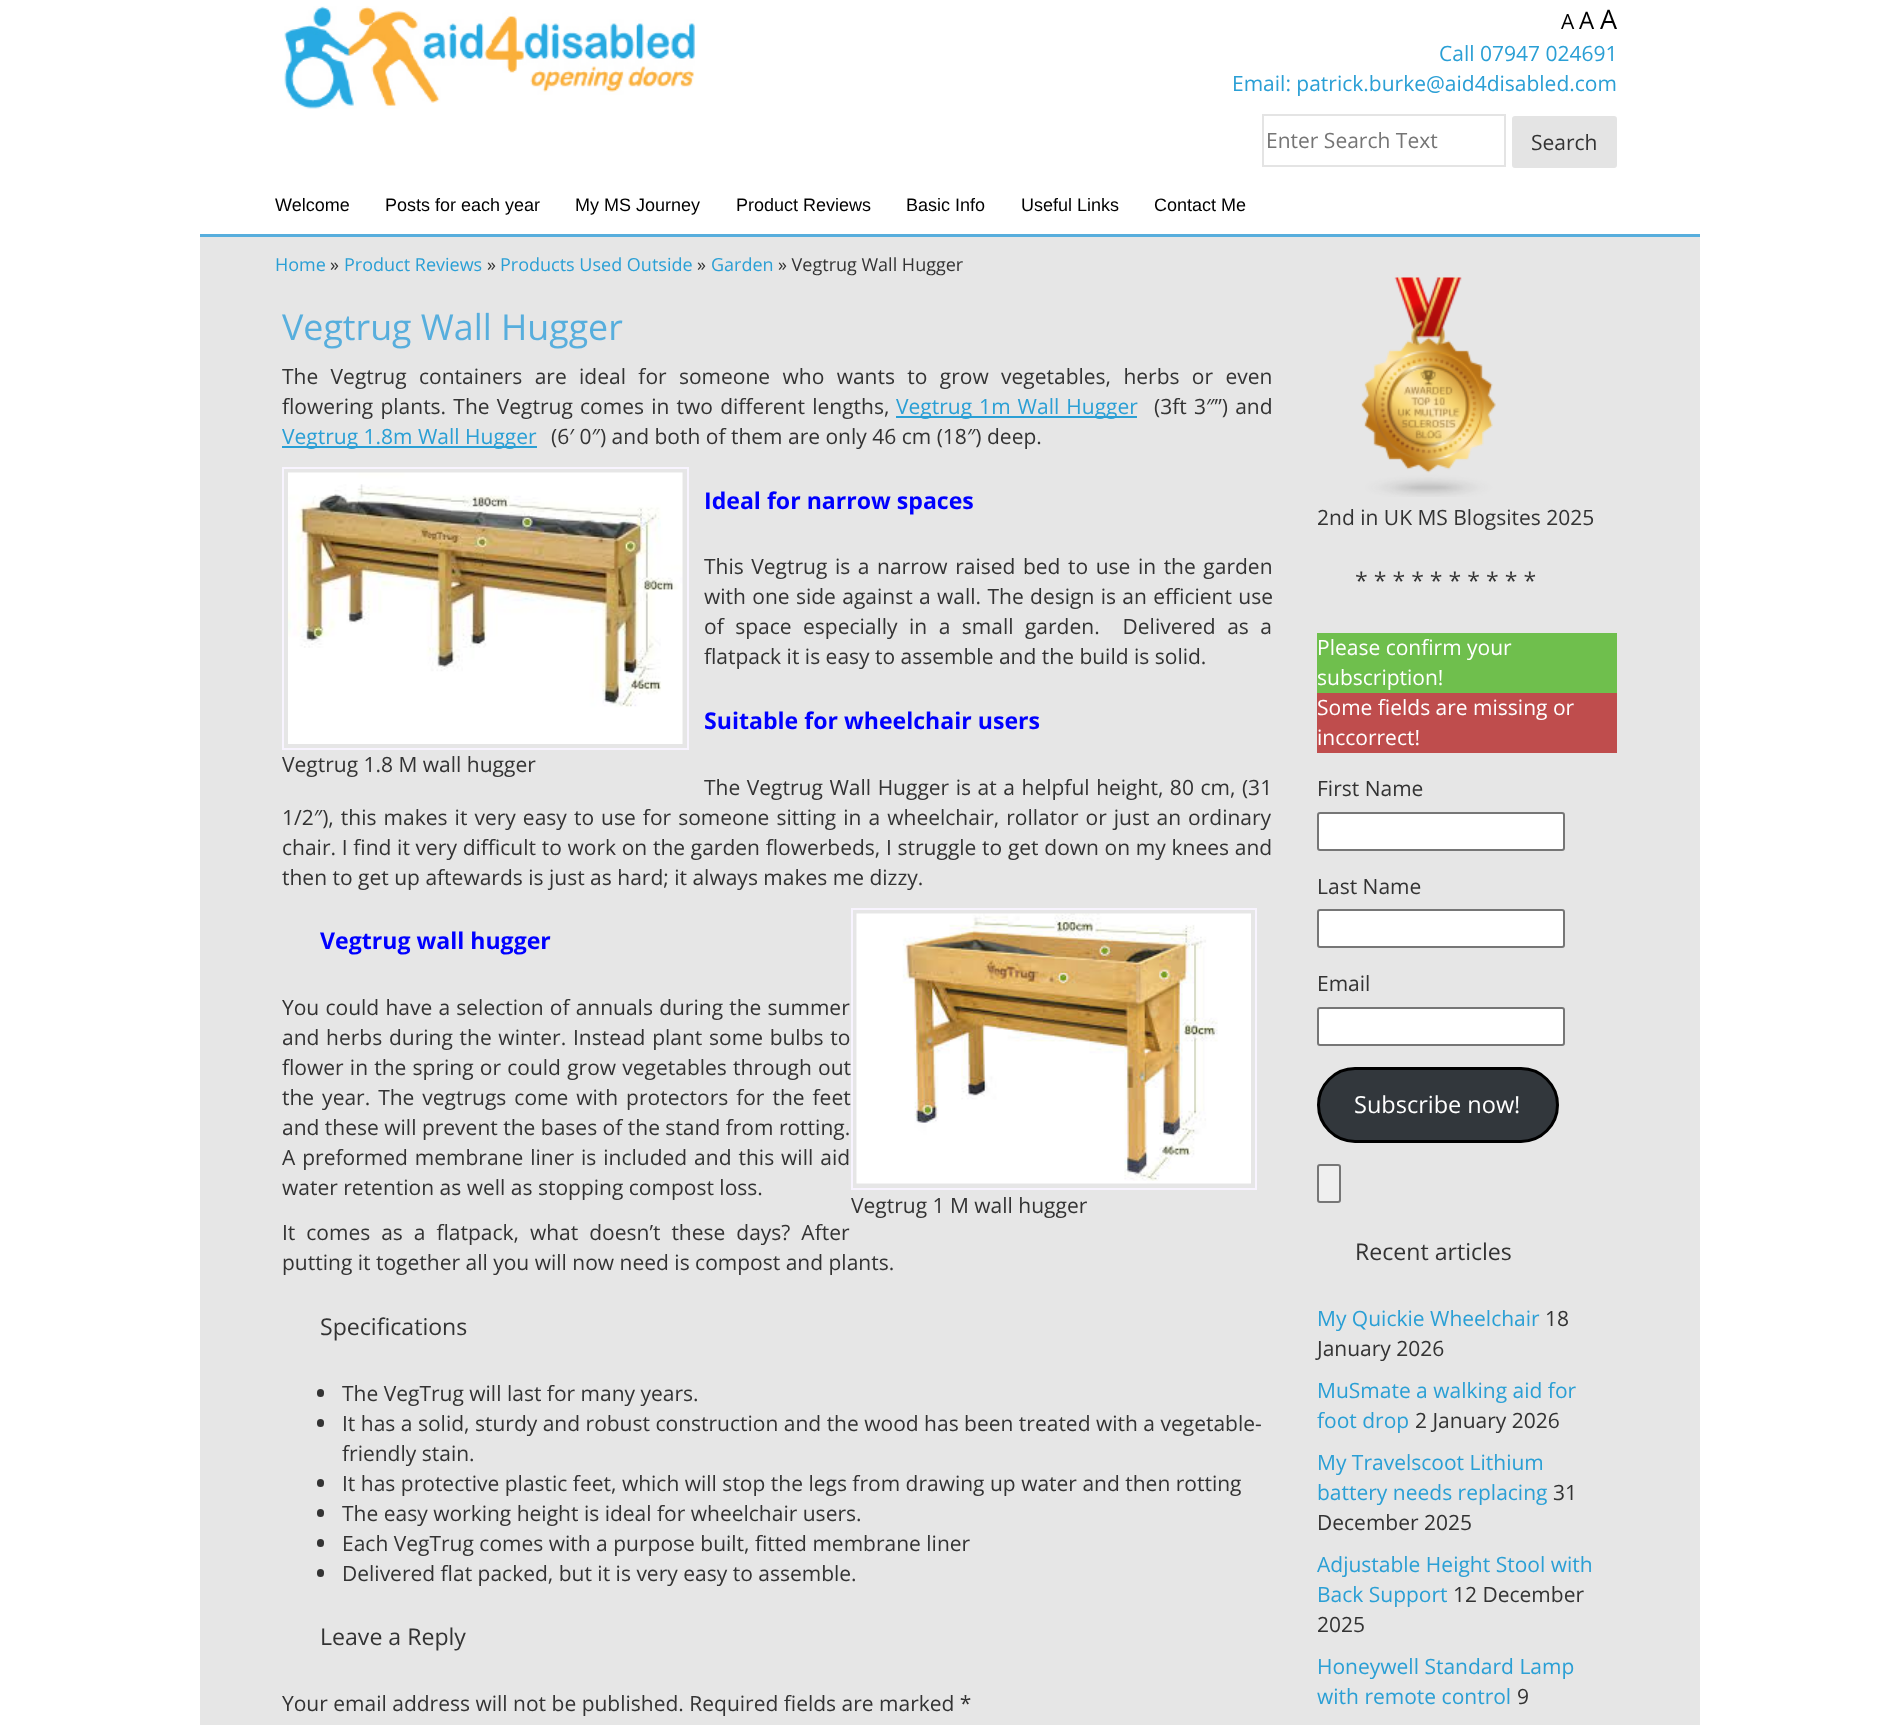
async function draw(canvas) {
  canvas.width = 1898
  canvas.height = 1725
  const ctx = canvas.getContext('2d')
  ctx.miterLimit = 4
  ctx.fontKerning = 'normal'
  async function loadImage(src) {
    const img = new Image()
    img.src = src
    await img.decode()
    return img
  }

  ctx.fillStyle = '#fff'
  ctx.fillRect(0, 0, 1898, 1725)
  ctx.drawImage(await loadImage('image0.png'), 284, 6, 411, 103)
  ctx.font = '21px Open Sans'
  ctx.fillStyle = '#000'
  ctx.fillText('A', 1561, 29)
  ctx.font = '24px Open Sans'
  ctx.fillText('A', 1579, 29)
  ctx.font = '27px Open Sans'
  ctx.fillText('A', 1600, 29)
  ctx.font = '21px Open Sans'
  ctx.fillStyle = '#2a9fd5'
  ctx.fillText('Call 07947 024691', 1439, 61)
  ctx.fillText('Email: patrick.burke@aid4disabled.com', 1232, 91)
  ctx.strokeStyle = '#e4e4e4'
  ctx.lineWidth = 2
  ctx.strokeRect(1263, 115, 242, 51)
  ctx.fillStyle = '#757575'
  ctx.fillText('Enter Search Text', 1266, 148)
  ctx.fillStyle = '#e4e4e4'
  ctx.beginPath()
  ctx.roundRect(1513, 117, 103, 50, 2)
  ctx.fill()
  ctx.stroke()
  ctx.fillStyle = '#333'
  ctx.fillText('Search', 1531, 150)
  ctx.font = '18px Liberation Sans'
  ctx.fillStyle = '#000'
  ctx.fillText('Welcome', 275, 211)
  ctx.fillText('Posts for each year', 385, 211)
  ctx.fillText('My MS Journey', 575, 211)
  ctx.fillText('Product Reviews', 736, 211)
  ctx.fillText('Basic Info', 906, 211)
  ctx.fillText('Useful Links', 1021, 211)
  ctx.fillText('Contact Me', 1154, 211)
  ctx.fillStyle = '#e6e6e6'
  ctx.fillRect(200, 237, 1500, 1488)
  ctx.fillStyle = '#57aedd'
  ctx.fillRect(200, 234, 1500, 3)
  ctx.font = '18px Open Sans'
  ctx.fillStyle = '#2a9fd5'
  ctx.fillText('Home', 275, 271)
  ctx.fillStyle = '#333'
  ctx.fillText('»', 330, 271)
  ctx.fillStyle = '#2a9fd5'
  ctx.fillText('Product Reviews', 344, 271)
  ctx.fillStyle = '#333'
  ctx.fillText('»', 487, 271)
  ctx.fillStyle = '#2a9fd5'
  ctx.fillText('Products Used Outside', 500, 271)
  ctx.fillStyle = '#333'
  ctx.fillText('»', 697, 271)
  ctx.fillStyle = '#2a9fd5'
  ctx.fillText('Garden', 711, 271)
  ctx.fillStyle = '#333'
  ctx.fillText('» Vegtrug Wall Hugger', 778, 271)
  ctx.font = '35.75px Open Sans'
  ctx.fillStyle = '#57aedd'
  ctx.fillText('Vegtrug Wall Hugger', 282, 340)
  ctx.wordSpacing = '6.9px'
  ctx.font = '21px Open Sans'
  ctx.fillStyle = '#333'
  ctx.fillText('The Vegtrug containers are ideal for someone who wants to grow vegetables, herbs or even', 282, 384)
  ctx.wordSpacing = '1.75px'
  ctx.fillText('flowering plants. The Vegtrug comes in two different lengths,', 282, 414)
  ctx.fillStyle = '#2a9fd5'
  ctx.fillRect(896, 416, 241, 2)
  ctx.wordSpacing = '1.6px'
  ctx.fillText('Vegtrug 1m Wall Hugger', 896, 414)
  ctx.wordSpacing = '1.75px'
  ctx.fillStyle = '#333'
  ctx.fillText('(3ft 3″”) and', 1154, 414)
  ctx.fillStyle = '#2a9fd5'
  ctx.fillRect(282, 446, 255, 2)
  ctx.wordSpacing = '0px'
  ctx.fillText('Vegtrug 1.8m Wall Hugger', 282, 444)
  ctx.fillStyle = '#333'
  ctx.fillText('(6′ 0″) and both of them are only 46 cm (18″) deep.', 551, 444)
  ctx.font = 'bold 23.1px Open Sans'
  ctx.fillStyle = '#00f'
  ctx.fillText('Ideal for narrow spaces', 704, 509)
  ctx.wordSpacing = '2.1px'
  ctx.font = '21px Open Sans'
  ctx.fillStyle = '#333'
  ctx.fillText('This Vegtrug is a narrow raised bed to use in the garden', 704, 574)
  ctx.wordSpacing = '0.9px'
  ctx.fillText('with one side against a wall. The design is an efficient use', 704, 604)
  ctx.wordSpacing = '6px'
  ctx.fillText('of space especially in a small garden.  Delivered as a', 704, 634)
  ctx.wordSpacing = '0px'
  ctx.fillText('flatpack it is easy to assemble and the build is solid.', 704, 664)
  ctx.font = 'bold 23.1px Open Sans'
  ctx.fillStyle = '#00f'
  ctx.fillText('Suitable for wheelchair users', 704, 729)
  ctx.strokeStyle = '#f8f4ff'
  ctx.strokeRect(283, 468, 405, 281)
  ctx.drawImage(await loadImage('image1.png'), 288, 472, 395, 272)
  ctx.font = '21px Open Sans'
  ctx.fillStyle = '#333'
  ctx.fillText('Vegtrug 1.8 M wall hugger', 282, 772)
  ctx.wordSpacing = '1.1px'
  ctx.fillText('The Vegtrug Wall Hugger is at a helpful height, 80 cm, (31', 704, 795)
  ctx.wordSpacing = '1.6px'
  ctx.fillText('1/2″), this makes it very easy to use for someone sitting in a wheelchair, rollator or just an ordinary', 282, 825)
  ctx.wordSpacing = '0.25px'
  ctx.fillText('chair. I find it very difficult to work on the garden flowerbeds, I struggle to get down on my knees and', 282, 855)
  ctx.wordSpacing = '0px'
  ctx.fillText('then to get up aftewards is just as hard; it always makes me dizzy.', 282, 885)
  ctx.font = 'bold 23.1px Open Sans'
  ctx.fillStyle = '#00f'
  ctx.fillText('Vegtrug wall hugger', 320, 949)
  ctx.wordSpacing = '0.75px'
  ctx.font = '21px Open Sans'
  ctx.fillStyle = '#333'
  ctx.fillText('You could have a selection of annuals during the summer', 282, 1015)
  ctx.wordSpacing = '1.25px'
  ctx.fillText('and herbs during the winter. Instead plant some bulbs to', 282, 1045)
  ctx.wordSpacing = '0.75px'
  ctx.fillText('flower in the spring or could grow vegetables through out', 282, 1075)
  ctx.wordSpacing = '2.5px'
  ctx.fillText('the year. The vegtrugs come with protectors for the feet', 282, 1105)
  ctx.wordSpacing = '0px'
  ctx.fillText('and these will prevent the bases of the stand from rotting.', 282, 1135)
  ctx.wordSpacing = '1.5px'
  ctx.fillText('A preformed membrane liner is included and this will aid', 282, 1165)
  ctx.wordSpacing = '0px'
  ctx.fillText('water retention as well as stopping compost loss.', 282, 1195)
  ctx.strokeRect(852, 909, 404, 280)
  ctx.drawImage(await loadImage('image2.png'), 856, 913, 395, 271)
  ctx.fillText('Vegtrug 1 M wall hugger', 851, 1213)
  ctx.wordSpacing = '5.5px'
  ctx.fillText('It comes as a flatpack, what doesn’t these days? After', 282, 1240)
  ctx.wordSpacing = '0px'
  ctx.fillText('putting it together all you will now need is compost and plants.', 282, 1270)
  ctx.font = '23.1px Open Sans'
  ctx.fillText('Specifications', 320, 1335)
  ctx.beginPath()
  ctx.roundRect(317, 1389, 7, 8, 3.5)
  ctx.fill()
  ctx.font = '21px Open Sans'
  ctx.fillText('The VegTrug will last for many years.', 342, 1401)
  ctx.beginPath()
  ctx.roundRect(317, 1419, 7, 8, 3.5)
  ctx.fill()
  ctx.fillText('It has a solid, sturdy and robust construction and the wood has been treated with a vegetable-', 342, 1431)
  ctx.fillText('friendly stain.', 342, 1461)
  ctx.beginPath()
  ctx.roundRect(317, 1479, 7, 8, 3.5)
  ctx.fill()
  ctx.fillText('It has protective plastic feet, which will stop the legs from drawing up water and then rotting', 342, 1491)
  ctx.beginPath()
  ctx.roundRect(317, 1509, 7, 8, 3.5)
  ctx.fill()
  ctx.fillText('The easy working height is ideal for wheelchair users.', 342, 1521)
  ctx.beginPath()
  ctx.roundRect(317, 1539, 7, 8, 3.5)
  ctx.fill()
  ctx.fillText('Each VegTrug comes with a purpose built, fitted membrane liner', 342, 1551)
  ctx.beginPath()
  ctx.roundRect(317, 1569, 7, 8, 3.5)
  ctx.fill()
  ctx.fillText('Delivered flat packed, but it is very easy to assemble.', 342, 1581)
  ctx.font = '23.1px Open Sans'
  ctx.fillText('Leave a Reply', 320, 1645)
  ctx.font = '21px Open Sans'
  ctx.fillText('Your email address will not be published. Required fields are marked *', 282, 1711)
  ctx.drawImage(await loadImage('image3.png'), 1361, 277, 135, 220)
  ctx.fillText('2nd in UK MS Blogsites 2025', 1317, 525)
  ctx.font = '23.1px Open Sans'
  ctx.fillText('* * * * * * * * * *', 1355, 589)
  ctx.fillStyle = '#6fbf4d'
  ctx.fillRect(1317, 633, 300, 60)
  ctx.font = '21px Open Sans'
  ctx.fillStyle = '#fff'
  ctx.fillText('Please confirm your', 1317, 655)
  ctx.fillText('subscription!', 1317, 685)
  ctx.fillStyle = '#bf4d4d'
  ctx.fillRect(1317, 693, 300, 60)
  ctx.fillStyle = '#fff'
  ctx.fillText('Some fields are missing or', 1317, 715)
  ctx.fillText('inccorrect!', 1317, 745)
  ctx.fillStyle = '#333'
  ctx.fillText('First Name', 1317, 796)
  ctx.fillStyle = '#fff'
  ctx.beginPath()
  ctx.roundRect(1318, 813, 246, 37, 2)
  ctx.fill()
  ctx.strokeStyle = '#767676'
  ctx.stroke()
  ctx.fillStyle = '#333'
  ctx.fillText('Last Name', 1317, 894)
  ctx.fillStyle = '#fff'
  ctx.beginPath()
  ctx.roundRect(1318, 910, 246, 37, 2)
  ctx.fill()
  ctx.stroke()
  ctx.fillStyle = '#333'
  ctx.fillText('Email', 1317, 991)
  ctx.fillStyle = '#fff'
  ctx.beginPath()
  ctx.roundRect(1318, 1008, 246, 37, 2)
  ctx.fill()
  ctx.stroke()
  ctx.fillStyle = '#32373c'
  ctx.beginPath()
  ctx.roundRect(1318.5, 1068.5, 239, 73, 36.5)
  ctx.fill()
  ctx.strokeStyle = '#000'
  ctx.lineWidth = 3
  ctx.stroke()
  ctx.font = '23.5px Open Sans'
  ctx.fillStyle = '#fff'
  ctx.fillText('Subscribe now!', 1354, 1113)
  ctx.fillStyle = '#efefef'
  ctx.beginPath()
  ctx.roundRect(1318, 1165, 22, 37, 2)
  ctx.fill()
  ctx.strokeStyle = '#767676'
  ctx.lineWidth = 2
  ctx.stroke()
  ctx.font = '23.1px Open Sans'
  ctx.fillStyle = '#333'
  ctx.fillText('Recent articles', 1355, 1260)
  ctx.font = '21px Open Sans'
  ctx.fillStyle = '#2a9fd5'
  ctx.fillText('My Quickie Wheelchair', 1317, 1326)
  ctx.fillStyle = '#333'
  ctx.fillText('18', 1545, 1326)
  ctx.fillText('January 2026', 1317, 1356)
  ctx.fillStyle = '#2a9fd5'
  ctx.fillText('MuSmate a walking aid for', 1317, 1398)
  ctx.fillText('foot drop', 1317, 1428)
  ctx.fillStyle = '#333'
  ctx.fillText('2 January 2026', 1415, 1428)
  ctx.fillStyle = '#2a9fd5'
  ctx.fillText('My Travelscoot Lithium', 1317, 1470)
  ctx.fillText('battery needs replacing', 1317, 1500)
  ctx.fillStyle = '#333'
  ctx.fillText('31', 1553, 1500)
  ctx.fillText('December 2025', 1317, 1530)
  ctx.fillStyle = '#2a9fd5'
  ctx.fillText('Adjustable Height Stool with', 1317, 1572)
  ctx.fillText('Back Support', 1317, 1602)
  ctx.fillStyle = '#333'
  ctx.fillText('12 December', 1453, 1602)
  ctx.fillText('2025', 1317, 1632)
  ctx.fillStyle = '#2a9fd5'
  ctx.fillText('Honeywell Standard Lamp', 1317, 1674)
  ctx.fillText('with remote control', 1317, 1704)
  ctx.fillStyle = '#333'
  ctx.fillText('9', 1517, 1704)
}

draw(document.querySelector('canvas'))
